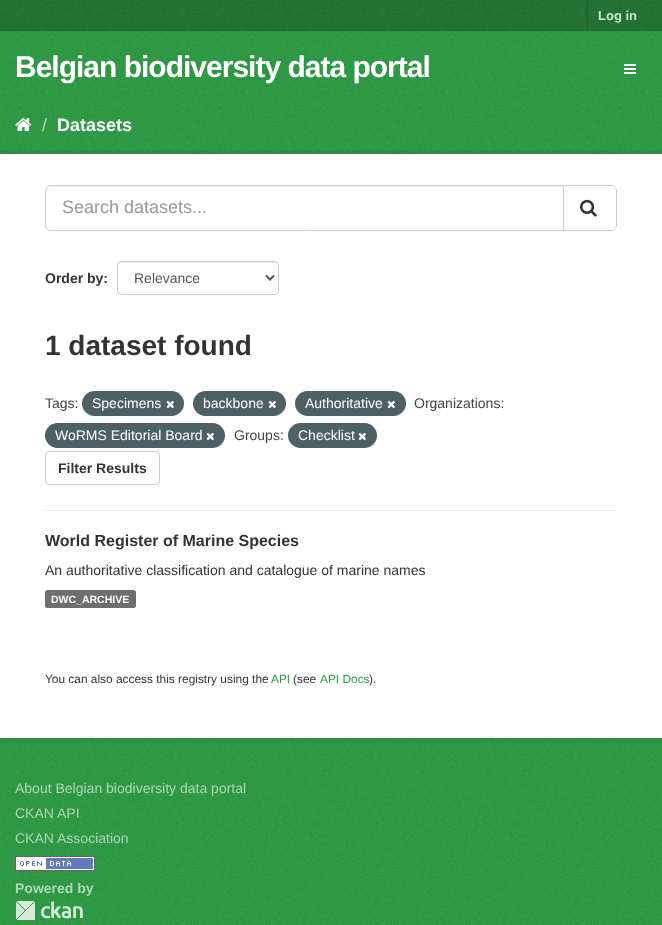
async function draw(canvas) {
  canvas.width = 662
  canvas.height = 925
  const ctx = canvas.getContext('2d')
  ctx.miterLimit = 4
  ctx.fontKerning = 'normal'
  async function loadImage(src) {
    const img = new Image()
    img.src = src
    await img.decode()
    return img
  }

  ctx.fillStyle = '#2f9b45'
  ctx.fillRect(0, 0, 662, 925)
  ctx.drawImage(await loadImage('image0.png'), 0, 108, 662, 650)
  ctx.fillStyle = '#237434'
  ctx.fillRect(0, 0, 662, 31)
  ctx.drawImage(await loadImage('image1.png'), 0, 0, 662, 31)
  ctx.fillStyle = '#1d602b'
  ctx.fillRect(587, 0, 1, 31)
  ctx.font = 'bold 13px Liberation Sans'
  ctx.fillStyle = '#cbe6d1'
  ctx.fillText('Log in', 598, 20)
  ctx.drawImage(await loadImage('image2.png'), 0, 31, 662, 77)
  ctx.letterSpacing = '-1px'
  ctx.font = 'bold 30px Liberation Sans'
  ctx.fillStyle = '#fff'
  ctx.fillText('Belgian biodiversity data portal', 15, 77)
  ctx.drawImage(await loadImage('image3.png'), 624, 64, 12, 10)
  ctx.drawImage(await loadImage('image4.png'), 15, 118, 17, 13)
  ctx.letterSpacing = '0px'
  ctx.font = '18px Liberation Sans'
  ctx.fillStyle = '#ccc'
  ctx.fillText('/', 42, 131)
  ctx.font = 'bold 18px Liberation Sans'
  ctx.fillStyle = '#fff'
  ctx.fillText('Datasets', 57, 131)
  ctx.strokeStyle = '#0000000d'
  ctx.lineWidth = 4
  ctx.strokeRect(-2, 152, 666, 588)
  ctx.fillRect(0, 154, 662, 584)
  ctx.beginPath()
  ctx.moveTo(45, 510.5)
  ctx.lineTo(617, 510.5)
  ctx.strokeStyle = '#ddd'
  ctx.lineWidth = 1
  ctx.setLineDash([1, 1])
  ctx.stroke()
  ctx.fillStyle = '#ececec'
  ctx.beginPath()
  ctx.moveTo(51, 187)
  ctx.lineTo(563, 187)
  ctx.lineTo(563, 186)
  ctx.lineTo(51, 186)
  ctx.bezierCurveTo(48, 186, 46, 188, 46, 191)
  ctx.lineTo(46, 192)
  ctx.bezierCurveTo(46, 189, 48, 187, 51, 187)
  ctx.closePath()
  ctx.fill()
  ctx.beginPath()
  ctx.roundRect(45.5, 185.5, 518, 45, [5.5, 0, 0, 5.5])
  ctx.strokeStyle = '#ccc'
  ctx.setLineDash([])
  ctx.stroke()
  ctx.font = '18px Liberation Sans'
  ctx.fillStyle = '#999'
  ctx.fillText('Search datasets...', 62, 213)
  ctx.fillStyle = '#fff'
  ctx.beginPath()
  ctx.roundRect(563.5, 185.5, 53, 45, [0, 5.5, 5.5, 0])
  ctx.fill()
  ctx.stroke()
  ctx.drawImage(await loadImage('image5.png'), 580, 199, 17, 18)
  ctx.font = 'bold 14px Liberation Sans'
  ctx.fillStyle = '#333'
  ctx.fillText('Order by:', 45, 283)
  ctx.fillStyle = '#ececec'
  ctx.beginPath()
  ctx.moveTo(121, 263)
  ctx.lineTo(275, 263)
  ctx.bezierCurveTo(277, 263, 278, 264, 278, 266)
  ctx.bezierCurveTo(278, 264, 277, 262, 275, 262)
  ctx.lineTo(120, 262)
  ctx.bezierCurveTo(118, 262, 118, 264, 118, 266)
  ctx.bezierCurveTo(118, 264, 119, 263, 121, 263)
  ctx.closePath()
  ctx.fill()
  ctx.beginPath()
  ctx.roundRect(117.5, 261.5, 161, 33, 3.5)
  ctx.stroke()
  ctx.beginPath()
  ctx.moveTo(266, 275.5)
  ctx.lineTo(270, 279.5)
  ctx.lineTo(274, 275.5)
  ctx.strokeStyle = '#555'
  ctx.lineWidth = 2
  ctx.stroke()
  ctx.font = '14px Liberation Sans'
  ctx.fillStyle = '#555'
  ctx.fillText('Relevance', 134, 283)
  ctx.font = 'bold 28px Liberation Sans'
  ctx.fillStyle = '#333'
  ctx.fillText('1 dataset found', 45, 355)
  ctx.font = '14px Liberation Sans'
  ctx.fillStyle = '#444'
  ctx.fillText('Tags:', 45, 408)
  ctx.fillStyle = '#4e5f65'
  ctx.beginPath()
  ctx.roundRect(82, 391, 102, 25, 12.5)
  ctx.fill()
  ctx.fillStyle = '#fff'
  ctx.fillText('Specimens', 92, 408)
  ctx.drawImage(await loadImage('image6.png'), 166, 400, 8, 9)
  ctx.fillStyle = '#4e5f65'
  ctx.beginPath()
  ctx.roundRect(193, 391, 93, 25, 12.5)
  ctx.fill()
  ctx.fillStyle = '#fff'
  ctx.fillText('backbone', 203, 408)
  ctx.drawImage(await loadImage('image6.png'), 268, 400, 8, 9)
  ctx.fillStyle = '#4e5f65'
  ctx.beginPath()
  ctx.roundRect(295, 391, 111, 25, 12.5)
  ctx.fill()
  ctx.fillStyle = '#fff'
  ctx.fillText('Authoritative', 305, 408)
  ctx.drawImage(await loadImage('image6.png'), 387, 400, 8, 9)
  ctx.fillStyle = '#444'
  ctx.fillText('Organizations:', 414, 408)
  ctx.fillStyle = '#4e5f65'
  ctx.beginPath()
  ctx.roundRect(45, 423, 180, 25, 12.5)
  ctx.fill()
  ctx.fillStyle = '#fff'
  ctx.fillText('WoRMS Editorial Board', 55, 440)
  ctx.drawImage(await loadImage('image6.png'), 206, 432, 8, 9)
  ctx.fillStyle = '#444'
  ctx.fillText('Groups:', 234, 440)
  ctx.fillStyle = '#4e5f65'
  ctx.beginPath()
  ctx.roundRect(288, 423, 89, 25, 12.5)
  ctx.fill()
  ctx.fillStyle = '#fff'
  ctx.fillText('Checklist', 298, 440)
  ctx.drawImage(await loadImage('image6.png'), 358, 432, 8, 9)
  ctx.beginPath()
  ctx.roundRect(45.5, 451.5, 114, 33, 3.5)
  ctx.strokeStyle = '#ccc'
  ctx.lineWidth = 1
  ctx.stroke()
  ctx.font = 'bold 14px Liberation Sans'
  ctx.fillStyle = '#333'
  ctx.fillText('Filter Results', 58, 473)
  ctx.font = 'bold 16px Liberation Sans'
  ctx.fillText('World Register of Marine Species', 45, 546)
  ctx.font = '14px Liberation Sans'
  ctx.fillText('An authoritative classification and catalogue of marine names', 45, 575)
  ctx.fillStyle = '#6e6e6e'
  ctx.beginPath()
  ctx.roundRect(45, 590, 91, 18, 2.5)
  ctx.fill()
  ctx.font = 'bold 10.5px Liberation Sans'
  ctx.fillStyle = '#fff'
  ctx.fillText('DWC_ARCHIVE', 51, 603)
  ctx.font = '11.9px Liberation Sans'
  ctx.fillStyle = '#333'
  ctx.fillText('You can also access this registry using the', 45, 683)
  ctx.fillStyle = '#2f9b45'
  ctx.fillText('API', 271, 683)
  ctx.fillStyle = '#333'
  ctx.fillText('(see', 293, 683)
  ctx.fillStyle = '#2f9b45'
  ctx.fillText('API Docs', 320, 683)
  ctx.fillStyle = '#333'
  ctx.fillText(').', 369, 683)
  ctx.drawImage(await loadImage('image7.png'), 0, 758, 662, 167)
  ctx.font = '14px Liberation Sans'
  ctx.fillStyle = '#acd7b5'
  ctx.fillText('About Belgian biodiversity data portal', 15, 793)
  ctx.fillText('CKAN API', 15, 818)
  ctx.fillText('CKAN Association', 15, 843)
  ctx.drawImage(await loadImage('image8.png'), 15, 856, 80, 15)
  ctx.font = 'bold 14px Liberation Sans'
  ctx.fillText('Powered by', 15, 893)
  ctx.drawImage(await loadImage('image9.png'), 16, 901, 67, 19)
}

draw(document.querySelector('canvas'))
